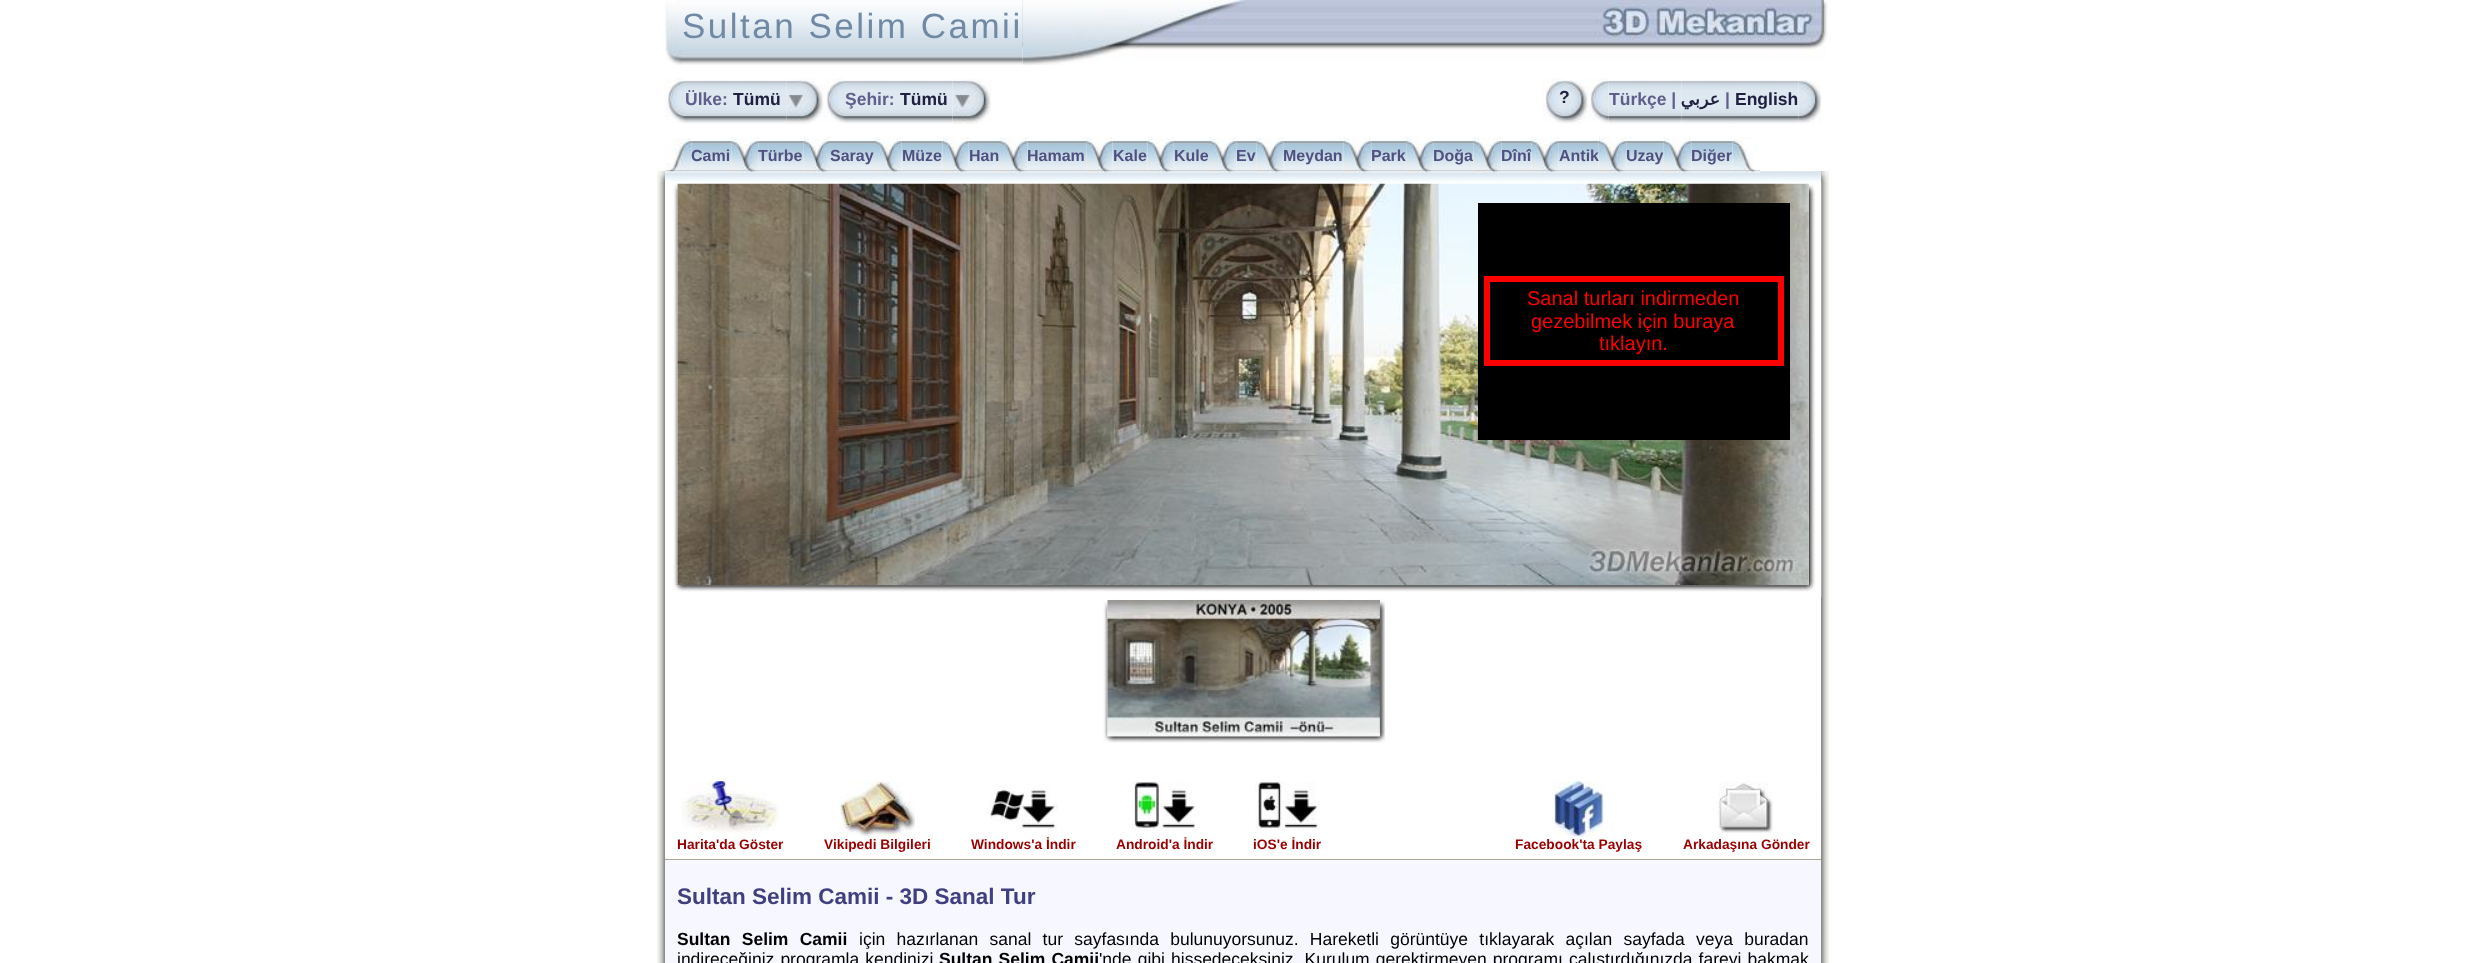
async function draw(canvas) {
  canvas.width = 2483
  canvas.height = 963
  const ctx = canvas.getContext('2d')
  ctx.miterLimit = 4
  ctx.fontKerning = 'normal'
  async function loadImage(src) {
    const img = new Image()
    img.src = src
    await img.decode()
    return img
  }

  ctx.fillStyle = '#fff'
  ctx.fillRect(0, 0, 2483, 963)
  ctx.drawImage(await loadImage('image0.png'), 665, 0, 1163, 65)
  ctx.drawImage(await loadImage('image1.png'), 682, 0, 341, 65)
  ctx.letterSpacing = '2.5px'
  ctx.font = '35px Liberation Sans'
  ctx.fillStyle = '#7089a4'
  ctx.fillText('Sultan Selim Camii', 682, 38)
  ctx.drawImage(await loadImage('image2.png'), 1022, 0, 223, 65)
  ctx.drawImage(await loadImage('image3.png'), 665, 78, 20, 46)
  ctx.drawImage(await loadImage('image4.png'), 685, 80, 102, 44)
  ctx.drawImage(await loadImage('image5.png'), 786, 78, 38, 46)
  ctx.letterSpacing = '0px'
  ctx.font = 'bold 17.5px Liberation Sans'
  ctx.fillStyle = '#5f5f8a'
  ctx.fillText('Ülke:', 685, 105)
  ctx.fillStyle = '#202040'
  ctx.fillText('Tümü', 733, 105)
  ctx.drawImage(await loadImage('image6.png'), 824, 78, 21, 46)
  ctx.drawImage(await loadImage('image7.png'), 845, 80, 108, 44)
  ctx.drawImage(await loadImage('image8.png'), 952, 78, 39, 46)
  ctx.fillStyle = '#5f5f8a'
  ctx.fillText('Şehir:', 845, 105)
  ctx.fillStyle = '#202040'
  ctx.fillText('Tümü', 900, 105)
  ctx.drawImage(await loadImage('image9.png'), 1542, 78, 23, 46)
  ctx.drawImage(await loadImage('image11.png'), 1587, 78, 22, 46)
  ctx.drawImage(await loadImage('image10.png'), 1565, 80, 23, 44)
  ctx.fillText('?', 1559, 103)
  ctx.drawImage(await loadImage('image12.png'), 1608, 80, 74, 44)
  ctx.drawImage(await loadImage('image13.png'), 1681, 80, 44, 44)
  ctx.drawImage(await loadImage('image14.png'), 1725, 80, 10, 44)
  ctx.drawImage(await loadImage('image15.png'), 1735, 80, 64, 44)
  ctx.drawImage(await loadImage('image16.png'), 1798, 80, 23, 44)
  ctx.fillStyle = '#5f5f8a'
  ctx.fillText('Türkçe |', 1609, 105)
  ctx.direction = 'rtl'
  ctx.font = 'bold 17.5px DejaVu Sans'
  ctx.fillStyle = '#202040'
  ctx.fillText('عربي', 1720, 105)
  ctx.direction = 'ltr'
  ctx.font = 'bold 17.5px Liberation Sans'
  ctx.fillStyle = '#5f5f8a'
  ctx.fillText('|', 1725, 105)
  ctx.fillStyle = '#202040'
  ctx.fillText('English', 1735, 105)
  ctx.drawImage(await loadImage('image57.png'), 1821, 171, 8, 792)
  ctx.drawImage(await loadImage('image60.png'), 665, 171, 1157, 427)
  ctx.drawImage(await loadImage('image17.png'), 665, 138, 27, 35)
  ctx.drawImage(await loadImage('image18.png'), 691, 138, 41, 35)
  ctx.font = 'bold 16px Liberation Sans'
  ctx.fillStyle = '#505080'
  ctx.fillText('Cami', 691, 161)
  ctx.drawImage(await loadImage('image19.png'), 731, 137, 28, 36)
  ctx.drawImage(await loadImage('image20.png'), 758, 138, 46, 35)
  ctx.fillText('Türbe', 758, 161)
  ctx.drawImage(await loadImage('image21.png'), 803, 137, 27, 36)
  ctx.drawImage(await loadImage('image22.png'), 830, 138, 45, 35)
  ctx.fillText('Saray', 830, 161)
  ctx.drawImage(await loadImage('image23.png'), 875, 137, 27, 36)
  ctx.drawImage(await loadImage('image24.png'), 901, 138, 42, 35)
  ctx.fillText('Müze', 902, 161)
  ctx.drawImage(await loadImage('image25.png'), 942, 137, 27, 36)
  ctx.drawImage(await loadImage('image26.png'), 968, 138, 32, 35)
  ctx.fillText('Han', 969, 161)
  ctx.drawImage(await loadImage('image27.png'), 1000, 137, 28, 36)
  ctx.drawImage(await loadImage('image28.png'), 1027, 138, 60, 35)
  ctx.fillText('Hamam', 1027, 161)
  ctx.drawImage(await loadImage('image29.png'), 1086, 137, 27, 36)
  ctx.drawImage(await loadImage('image30.png'), 1112, 138, 36, 35)
  ctx.fillText('Kale', 1113, 161)
  ctx.drawImage(await loadImage('image25.png'), 1147, 137, 27, 36)
  ctx.drawImage(await loadImage('image31.png'), 1173, 138, 37, 35)
  ctx.fillText('Kule', 1174, 161)
  ctx.drawImage(await loadImage('image23.png'), 1210, 137, 27, 36)
  ctx.drawImage(await loadImage('image32.png'), 1236, 139, 21, 34)
  ctx.fillText('Ev', 1236, 161)
  ctx.drawImage(await loadImage('image33.png'), 1256, 137, 28, 36)
  ctx.drawImage(await loadImage('image34.png'), 1283, 138, 61, 35)
  ctx.fillText('Meydan', 1283, 161)
  ctx.drawImage(await loadImage('image35.png'), 1343, 137, 29, 36)
  ctx.drawImage(await loadImage('image36.png'), 1371, 138, 36, 35)
  ctx.fillText('Park', 1371, 161)
  ctx.drawImage(await loadImage('image19.png'), 1406, 137, 28, 36)
  ctx.drawImage(await loadImage('image37.png'), 1433, 138, 41, 35)
  ctx.fillText('Doğa', 1433, 161)
  ctx.drawImage(await loadImage('image38.png'), 1473, 137, 29, 36)
  ctx.drawImage(await loadImage('image39.png'), 1501, 138, 31, 35)
  ctx.fillText('Dînî', 1501, 161)
  ctx.drawImage(await loadImage('image40.png'), 1531, 137, 28, 36)
  ctx.drawImage(await loadImage('image41.png'), 1558, 138, 41, 35)
  ctx.fillText('Antik', 1559, 161)
  ctx.drawImage(await loadImage('image42.png'), 1598, 137, 29, 36)
  ctx.drawImage(await loadImage('image43.png'), 1626, 138, 38, 35)
  ctx.fillText('Uzay', 1626, 161)
  ctx.drawImage(await loadImage('image44.png'), 1663, 137, 29, 36)
  ctx.drawImage(await loadImage('image45.png'), 1691, 138, 42, 35)
  ctx.fillText('Diğer', 1691, 161)
  ctx.drawImage(await loadImage('image46.png'), 1732, 137, 28, 36)
  ctx.drawImage(await loadImage('image61.png'), 677, 183, 1132, 402)
  ctx.fillStyle = '#000'
  ctx.fillRect(1478, 203, 312, 237)
  ctx.strokeStyle = '#f00'
  ctx.lineWidth = 6
  ctx.strokeRect(1487, 279, 294, 84)
  ctx.font = '20px Liberation Sans'
  ctx.fillStyle = '#f00'
  ctx.fillText('Sanal turları indirmeden', 1527, 305)
  ctx.fillText('gezebilmek için buraya', 1531, 328)
  ctx.fillText('tıklayın.', 1599, 350)
  ctx.drawImage(await loadImage('image47.png'), 1103, 599, 282, 144)
  ctx.drawImage(await loadImage('image48.png'), 1107, 600, 273, 137)
  ctx.drawImage(await loadImage('image49.png'), 681, 781, 98, 52)
  ctx.font = 'bold 13.75px Liberation Sans'
  ctx.fillStyle = '#900'
  ctx.fillText('Harita\'da Göster', 677, 849)
  ctx.drawImage(await loadImage('image50.png'), 840, 781, 75, 56)
  ctx.fillText('Vikipedi Bilgileri', 824, 849)
  ctx.drawImage(await loadImage('image51.png'), 990, 784, 68, 47)
  ctx.fillText('Windows\'a İndir', 971, 849)
  ctx.drawImage(await loadImage('image52.png'), 1131, 781, 65, 50)
  ctx.fillText('Android\'a İndir', 1116, 849)
  ctx.drawImage(await loadImage('image53.png'), 1255, 781, 64, 50)
  ctx.fillText('iOS\'e İndir', 1253, 849)
  ctx.drawImage(await loadImage('image54.png'), 1553, 781, 51, 56)
  ctx.fillText('Facebook\'ta Paylaş', 1515, 849)
  ctx.drawImage(await loadImage('image55.png'), 1718, 781, 55, 52)
  ctx.fillText('Arkadaşına Gönder', 1683, 849)
  ctx.drawImage(await loadImage('image56.png'), 657, 171, 8, 792)
  ctx.drawImage(await loadImage('image58.png'), 657, 171, 8, 11)
  ctx.drawImage(await loadImage('image59.png'), 1821, 171, 7, 12)
  ctx.fillStyle = '#f7f7ff'
  ctx.fillRect(665, 860, 1156, 103)
  ctx.fillStyle = '#aca899'
  ctx.fillRect(665, 859, 1156, 1)
  ctx.font = 'bold 22.5px Liberation Sans'
  ctx.fillStyle = '#404080'
  ctx.fillText('Sultan Selim Camii - 3D Sanal Tur', 677, 904)
  ctx.wordSpacing = '6.4px'
  ctx.font = 'bold 17.5px Liberation Sans'
  ctx.fillStyle = '#000'
  ctx.fillText('Sultan Selim Camii', 677, 945)
  ctx.font = '17.5px Liberation Sans'
  ctx.fillText('için hazırlanan sanal tur sayfasında bulunuyorsunuz. Hareketli görüntüye tıklayarak açılan sayfada veya buradan', 859, 945)
  ctx.wordSpacing = '1.25px'
  ctx.fillText('indireceğiniz programla kendinizi', 677, 965)
  ctx.font = 'bold 17.5px Liberation Sans'
  ctx.fillText('Sultan Selim Camii', 939, 965)
  ctx.font = '17.5px Liberation Sans'
  ctx.fillText('\'nde gibi hissedeceksiniz. Kurulum gerektirmeyen programı çalıştırdığınızda fareyi bakmak', 1099, 965)
}

draw(document.querySelector('canvas'))
